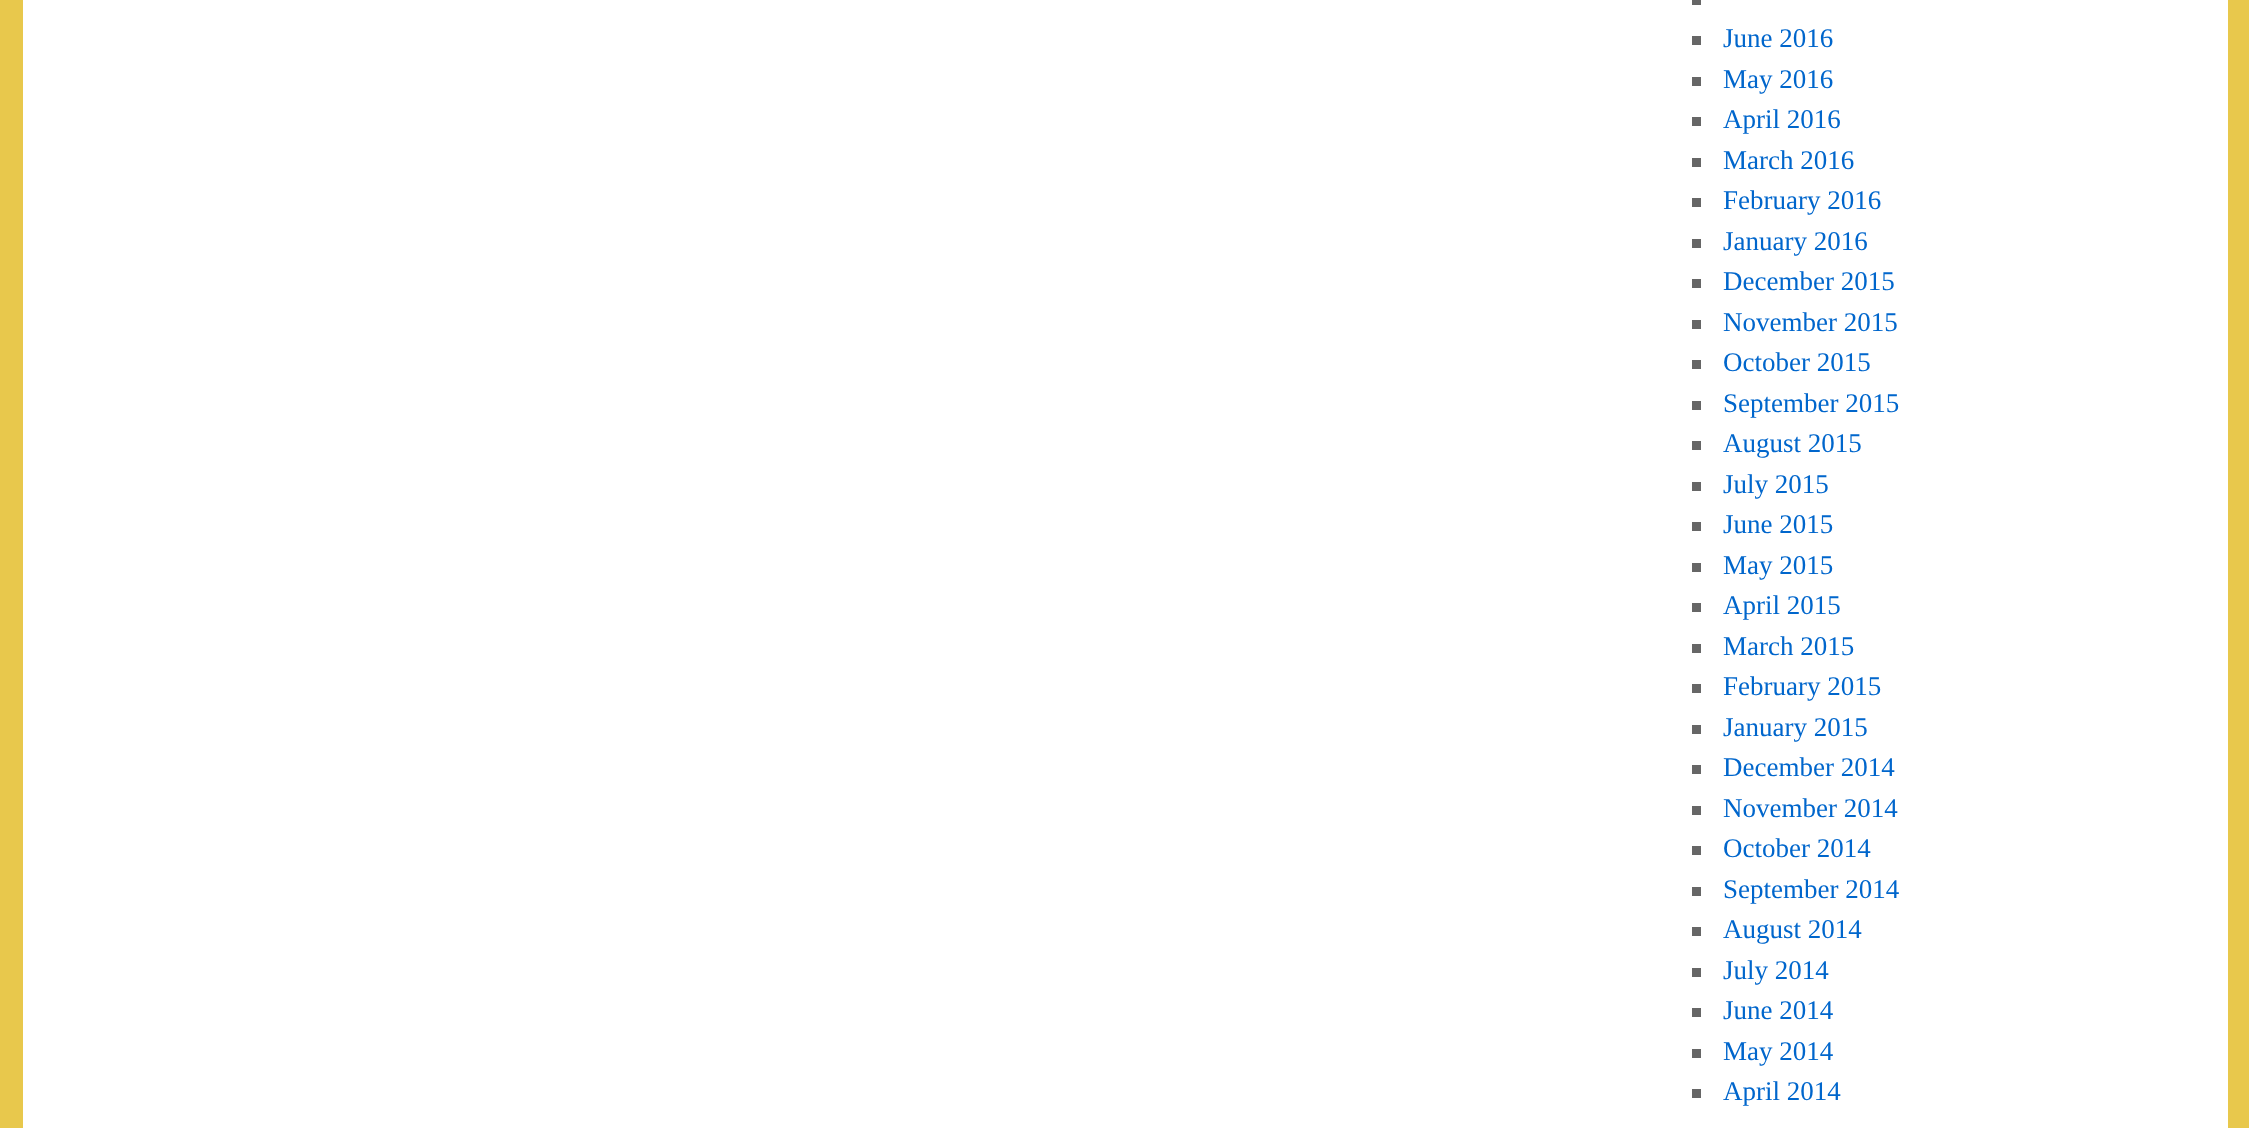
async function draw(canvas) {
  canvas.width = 2249
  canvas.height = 1128
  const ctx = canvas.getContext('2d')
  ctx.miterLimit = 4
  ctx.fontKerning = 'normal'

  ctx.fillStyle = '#e8c84c'
  ctx.fillRect(0, 0, 2249, 1128)
  ctx.fillStyle = '#fff'
  ctx.fillRect(23, 0, 2205, 1128)
  ctx.fillStyle = '#666'
  ctx.fillRect(1692, 0, 9, 5)
  ctx.fillRect(1692, 36, 9, 9)
  ctx.font = '27px Liberation Serif'
  ctx.fillStyle = '#06c'
  ctx.fillText('June 2016', 1723, 47)
  ctx.fillStyle = '#666'
  ctx.fillRect(1692, 77, 9, 9)
  ctx.fillStyle = '#06c'
  ctx.fillText('May 2016', 1723, 88)
  ctx.fillStyle = '#666'
  ctx.fillRect(1692, 117, 9, 9)
  ctx.fillStyle = '#06c'
  ctx.fillText('April 2016', 1723, 128)
  ctx.fillStyle = '#666'
  ctx.fillRect(1692, 158, 9, 9)
  ctx.fillStyle = '#06c'
  ctx.fillText('March 2016', 1723, 169)
  ctx.fillStyle = '#666'
  ctx.fillRect(1692, 198, 9, 9)
  ctx.fillStyle = '#06c'
  ctx.fillText('February 2016', 1723, 209)
  ctx.fillStyle = '#666'
  ctx.fillRect(1692, 239, 9, 9)
  ctx.fillStyle = '#06c'
  ctx.fillText('January 2016', 1723, 250)
  ctx.fillStyle = '#666'
  ctx.fillRect(1692, 279, 9, 9)
  ctx.fillStyle = '#06c'
  ctx.fillText('December 2015', 1723, 290)
  ctx.fillStyle = '#666'
  ctx.fillRect(1692, 320, 9, 9)
  ctx.fillStyle = '#06c'
  ctx.fillText('November 2015', 1723, 331)
  ctx.fillStyle = '#666'
  ctx.fillRect(1692, 360, 9, 9)
  ctx.fillStyle = '#06c'
  ctx.fillText('October 2015', 1723, 371)
  ctx.fillStyle = '#666'
  ctx.fillRect(1692, 401, 9, 9)
  ctx.fillStyle = '#06c'
  ctx.fillText('September 2015', 1723, 412)
  ctx.fillStyle = '#666'
  ctx.fillRect(1692, 441, 9, 9)
  ctx.fillStyle = '#06c'
  ctx.fillText('August 2015', 1723, 452)
  ctx.fillStyle = '#666'
  ctx.fillRect(1692, 482, 9, 9)
  ctx.fillStyle = '#06c'
  ctx.fillText('July 2015', 1723, 493)
  ctx.fillStyle = '#666'
  ctx.fillRect(1692, 522, 9, 9)
  ctx.fillStyle = '#06c'
  ctx.fillText('June 2015', 1723, 533)
  ctx.fillStyle = '#666'
  ctx.fillRect(1692, 563, 9, 9)
  ctx.fillStyle = '#06c'
  ctx.fillText('May 2015', 1723, 574)
  ctx.fillStyle = '#666'
  ctx.fillRect(1692, 603, 9, 9)
  ctx.fillStyle = '#06c'
  ctx.fillText('April 2015', 1723, 614)
  ctx.fillStyle = '#666'
  ctx.fillRect(1692, 644, 9, 9)
  ctx.fillStyle = '#06c'
  ctx.fillText('March 2015', 1723, 655)
  ctx.fillStyle = '#666'
  ctx.fillRect(1692, 684, 9, 9)
  ctx.fillStyle = '#06c'
  ctx.fillText('February 2015', 1723, 695)
  ctx.fillStyle = '#666'
  ctx.fillRect(1692, 725, 9, 9)
  ctx.fillStyle = '#06c'
  ctx.fillText('January 2015', 1723, 736)
  ctx.fillStyle = '#666'
  ctx.fillRect(1692, 765, 9, 9)
  ctx.fillStyle = '#06c'
  ctx.fillText('December 2014', 1723, 776)
  ctx.fillStyle = '#666'
  ctx.fillRect(1692, 806, 9, 9)
  ctx.fillStyle = '#06c'
  ctx.fillText('November 2014', 1723, 817)
  ctx.fillStyle = '#666'
  ctx.fillRect(1692, 846, 9, 9)
  ctx.fillStyle = '#06c'
  ctx.fillText('October 2014', 1723, 857)
  ctx.fillStyle = '#666'
  ctx.fillRect(1692, 887, 9, 9)
  ctx.fillStyle = '#06c'
  ctx.fillText('September 2014', 1723, 898)
  ctx.fillStyle = '#666'
  ctx.fillRect(1692, 927, 9, 9)
  ctx.fillStyle = '#06c'
  ctx.fillText('August 2014', 1723, 938)
  ctx.fillStyle = '#666'
  ctx.fillRect(1692, 968, 9, 9)
  ctx.fillStyle = '#06c'
  ctx.fillText('July 2014', 1723, 979)
  ctx.fillStyle = '#666'
  ctx.fillRect(1692, 1008, 9, 9)
  ctx.fillStyle = '#06c'
  ctx.fillText('June 2014', 1723, 1019)
  ctx.fillStyle = '#666'
  ctx.fillRect(1692, 1049, 9, 9)
  ctx.fillStyle = '#06c'
  ctx.fillText('May 2014', 1723, 1060)
  ctx.fillStyle = '#666'
  ctx.fillRect(1692, 1089, 9, 9)
  ctx.fillStyle = '#06c'
  ctx.fillText('April 2014', 1723, 1100)
}

draw(document.querySelector('canvas'))
